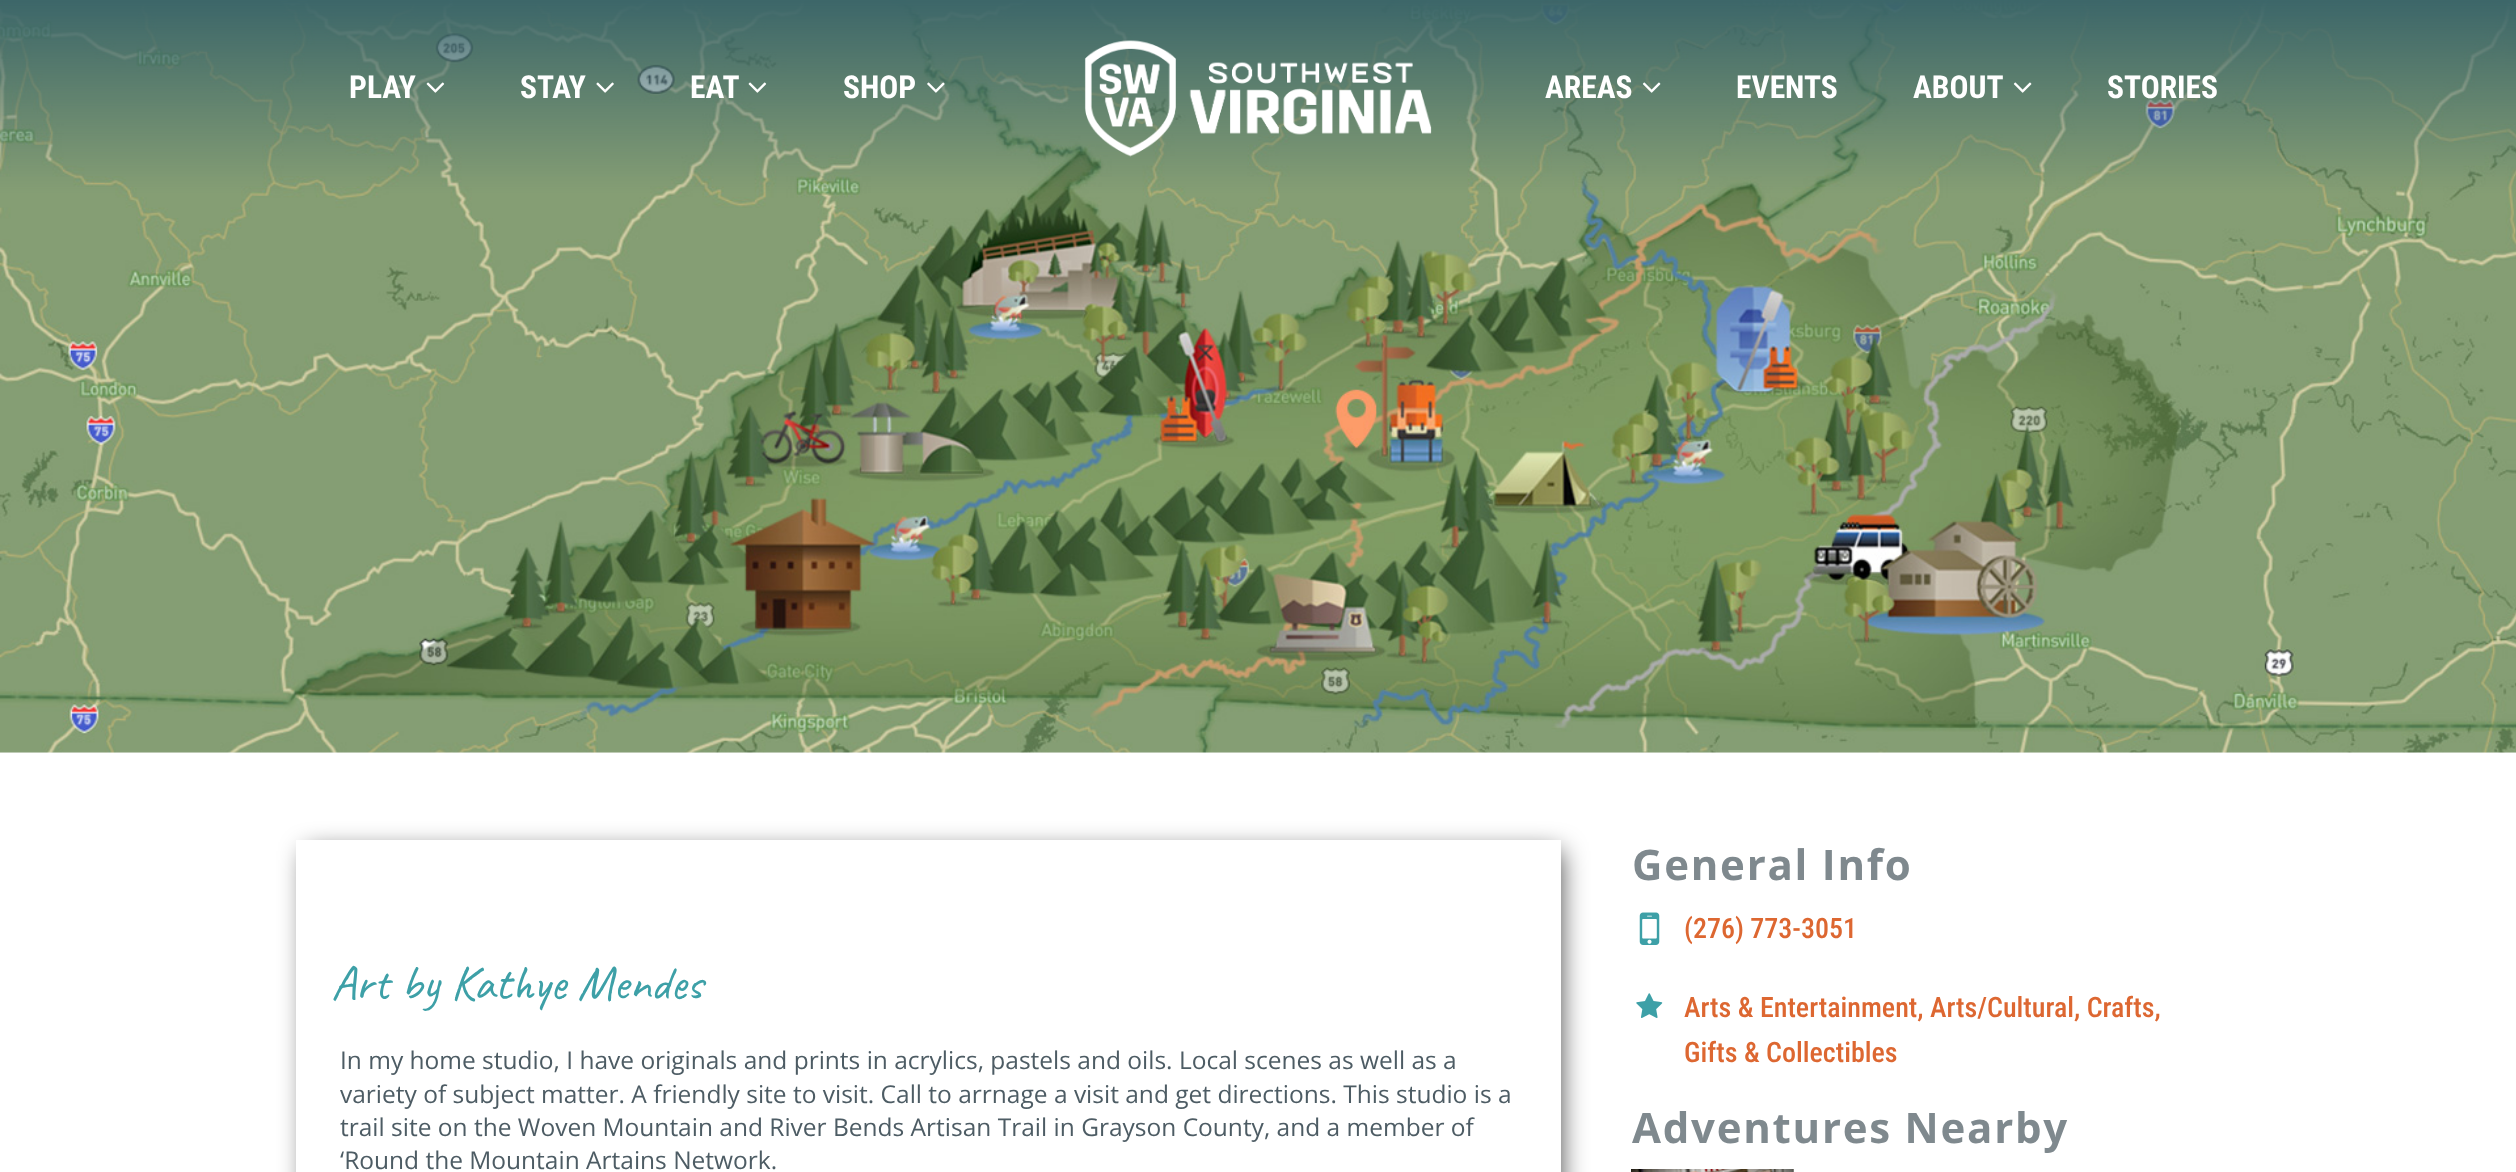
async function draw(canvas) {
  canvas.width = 2516
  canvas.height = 1172
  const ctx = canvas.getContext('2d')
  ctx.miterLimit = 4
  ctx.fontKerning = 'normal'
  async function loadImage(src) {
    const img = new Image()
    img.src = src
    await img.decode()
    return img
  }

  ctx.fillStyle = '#f6f6f6'
  ctx.fillRect(0, 0, 2516, 1172)
  ctx.drawImage(await loadImage('image7.png'), 0, 0, 2516, 753)
  ctx.drawImage(await loadImage('image0.png'), 1084, 40, 348, 117)
  ctx.font = 'bold 31.5px Roboto Condensed'
  ctx.fillStyle = '#fff'
  ctx.fillText('PLAY', 349, 98)
  ctx.drawImage(await loadImage('image1.png'), 426, 82, 19, 11)
  ctx.fillText('STAY', 520, 98)
  ctx.drawImage(await loadImage('image2.png'), 596, 82, 18, 11)
  ctx.fillText('EAT', 690, 98)
  ctx.drawImage(await loadImage('image3.png'), 748, 82, 19, 11)
  ctx.fillText('SHOP', 843, 98)
  ctx.drawImage(await loadImage('image4.png'), 927, 82, 18, 11)
  ctx.fillText('AREAS', 1545, 98)
  ctx.drawImage(await loadImage('image5.png'), 1642, 82, 19, 11)
  ctx.fillText('EVENTS', 1736, 98)
  ctx.fillText('ABOUT', 1913, 98)
  ctx.drawImage(await loadImage('image6.png'), 2013, 82, 19, 11)
  ctx.fillText('STORIES', 2107, 98)
  ctx.fillRect(0, 753, 2516, 419)
  ctx.save()
  ctx.beginPath()
  ctx.moveTo(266, 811)
  ctx.lineTo(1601, 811)
  ctx.lineTo(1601, 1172)
  ctx.lineTo(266, 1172)
  ctx.closePath()
  ctx.moveTo(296, 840)
  ctx.lineTo(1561, 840)
  ctx.lineTo(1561, 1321)
  ctx.lineTo(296, 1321)
  ctx.closePath()
  ctx.clip('evenodd')
  ctx.fillStyle = '#000000b8'
  ctx.filter = 'blur(13px)'
  ctx.beginPath()
  ctx.rect(306, 851, 1255, 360)
  ctx.fill()
  ctx.filter = 'none'
  ctx.restore()
  ctx.font = '49px Caveat'
  ctx.fillStyle = '#3da0a7'
  ctx.fillText('Art by Kathye Mendes', 331, 999)
  ctx.font = '24.5px Open Sans'
  ctx.fillStyle = '#4d5c64'
  ctx.fillText('In my home studio, I have originals and prints in acrylics, pastels and oils. Local scenes as well as a', 340, 1069)
  ctx.fillText('variety of subject matter. A friendly site to visit. Call to arrnage a visit and get directions. This studio is a', 340, 1103)
  ctx.fillText('trail site on the Woven Mountain and River Bends Artisan Trail in Grayson County, and a member of', 340, 1136)
  ctx.fillText('‘Round the Mountain Artains Network.', 340, 1169)
  ctx.letterSpacing = '1.75px'
  ctx.font = 'bold 42px Open Sans'
  ctx.fillStyle = '#7f898e'
  ctx.fillText('General Info', 1632, 880)
  ctx.drawImage(await loadImage('image8.png'), 1639, 912, 21, 33)
  ctx.letterSpacing = '0px'
  ctx.font = '500 28px Roboto Condensed'
  ctx.fillStyle = '#dd6731'
  ctx.fillText('(276) 773-3051', 1684, 938)
  ctx.drawImage(await loadImage('image9.png'), 1636, 993, 27, 25)
  ctx.fillText('Arts & Entertainment, Arts/Cultural, Crafts,', 1684, 1017)
  ctx.fillText('Gifts & Collectibles', 1684, 1062)
  ctx.letterSpacing = '1.75px'
  ctx.font = 'bold 42px Open Sans'
  ctx.fillStyle = '#7f898e'
  ctx.fillText('Adventures Nearby', 1632, 1143)
  ctx.drawImage(await loadImage('image10.png'), 1631, 1169, 163, 3)
}

draw(document.querySelector('canvas'))
